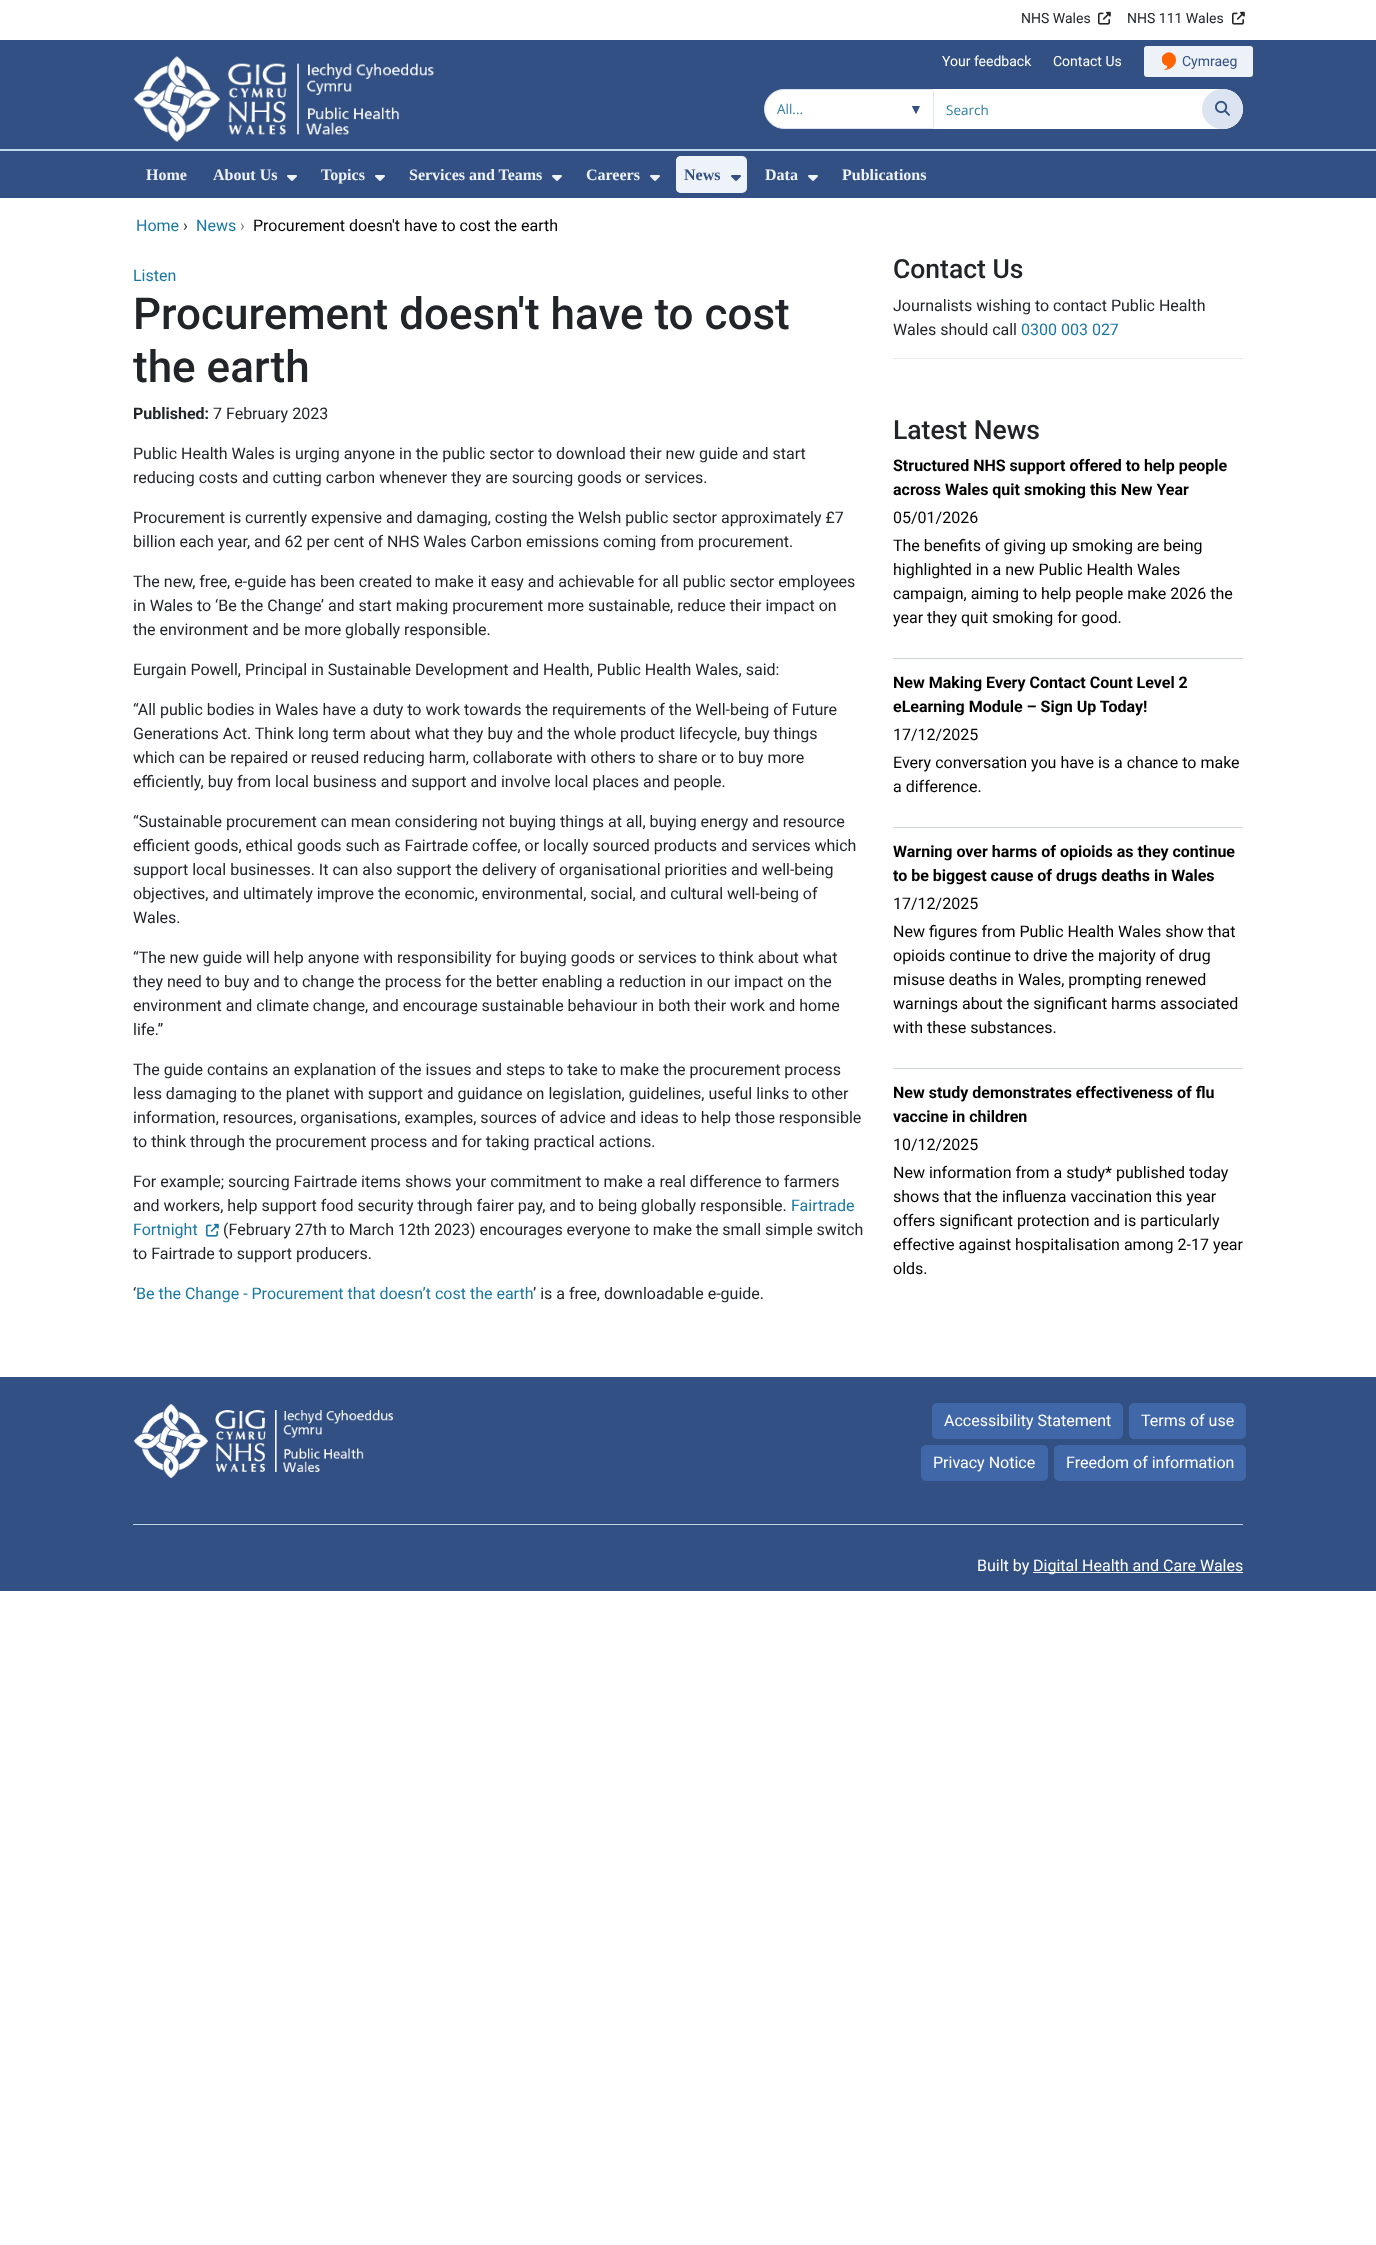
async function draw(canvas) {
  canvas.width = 1376
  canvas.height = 2245
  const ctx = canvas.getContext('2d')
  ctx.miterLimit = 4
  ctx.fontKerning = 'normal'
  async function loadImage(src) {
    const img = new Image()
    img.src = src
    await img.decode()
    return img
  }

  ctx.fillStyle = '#fff'
  ctx.fillRect(0, 0, 1376, 2245)
  ctx.fillStyle = '#325083'
  ctx.fillRect(0, 40, 1376, 109)
  ctx.fillStyle = '#bdd7ea'
  ctx.fillRect(0, 149, 1376, 2)
  ctx.font = '14px Roboto'
  ctx.fillStyle = '#212529'
  ctx.fillText('NHS Wales', 1021, 23)
  ctx.drawImage(await loadImage('image0.png'), 1098, 11, 13, 14)
  ctx.fillText('NHS 111 Wales', 1127, 23)
  ctx.drawImage(await loadImage('image0.png'), 1232, 11, 13, 14)
  ctx.fillStyle = '#fff'
  ctx.fillText('Your feedback', 942, 66)
  ctx.fillText('Contact Us', 1053, 66)
  ctx.fillStyle = '#edf1f8'
  ctx.beginPath()
  ctx.roundRect(1144, 46, 109, 31, 3)
  ctx.fill()
  ctx.drawImage(await loadImage('image1.png'), 1162, 52, 14, 18)
  ctx.fillStyle = '#325083'
  ctx.fillText('Cymraeg', 1182, 66)
  ctx.drawImage(await loadImage('image2.png'), 133, 56, 301, 86)
  ctx.fillStyle = '#fff'
  ctx.beginPath()
  ctx.roundRect(764.5, 89.5, 169, 39, [19.5, 0, 0, 19.5])
  ctx.fill()
  ctx.strokeStyle = '#dce4f2'
  ctx.stroke()
  ctx.font = '13.5px Open Sans'
  ctx.fillStyle = '#2d7ea5'
  ctx.fillText('All...', 777, 114)
  ctx.font = '14px Liberation Sans'
  ctx.fillStyle = '#325083'
  ctx.fillText('▼', 909, 114)
  ctx.fillStyle = '#fff'
  ctx.beginPath()
  ctx.roundRect(933, 89, 310, 40, [0, 20, 20, 0])
  ctx.fill()
  ctx.fillStyle = '#dce4f2'
  ctx.fillRect(933, 91, 1, 36)
  ctx.font = '13.5px Open Sans'
  ctx.fillStyle = '#2d7ea5'
  ctx.fillText('Search', 946, 115)
  ctx.fillStyle = '#dce4f2'
  ctx.beginPath()
  ctx.roundRect(1202.5, 89.5, 40, 39, 19.5)
  ctx.fill()
  ctx.stroke()
  ctx.drawImage(await loadImage('image3.png'), 1215, 100, 15, 16)
  ctx.fillStyle = '#325083'
  ctx.fillRect(0, 151, 1376, 47)
  ctx.font = 'bold 16px Liberation Serif'
  ctx.fillStyle = '#eef2f9'
  ctx.fillText('Home', 146, 180)
  ctx.fillText('About Us', 213, 180)
  ctx.drawImage(await loadImage('image4.png'), 287, 175, 10, 6)
  ctx.fillText('Topics', 321, 180)
  ctx.drawImage(await loadImage('image4.png'), 375, 175, 10, 6)
  ctx.fillText('Services and Teams', 409, 180)
  ctx.drawImage(await loadImage('image4.png'), 552, 175, 10, 6)
  ctx.fillText('Careers', 586, 180)
  ctx.drawImage(await loadImage('image4.png'), 650, 175, 10, 6)
  ctx.beginPath()
  ctx.roundRect(676, 156, 71, 37, 5)
  ctx.fill()
  ctx.beginPath()
  ctx.roundRect(676, 156, 45, 37, 5)
  ctx.fill()
  ctx.fillStyle = '#325083'
  ctx.fillText('News', 684, 180)
  ctx.drawImage(await loadImage('image5.png'), 731, 175, 10, 6)
  ctx.fillStyle = '#eef2f9'
  ctx.fillText('Data', 765, 180)
  ctx.drawImage(await loadImage('image4.png'), 808, 175, 10, 6)
  ctx.fillText('Publications', 842, 180)
  ctx.font = '16px Roboto'
  ctx.fillStyle = '#1978a3'
  ctx.fillText('Home', 136, 231)
  ctx.fillStyle = '#212529'
  ctx.fillText('›', 183, 231)
  ctx.fillStyle = '#1978a3'
  ctx.fillText('News', 196, 231)
  ctx.fillStyle = '#6c757d'
  ctx.fillText('›', 240, 231)
  ctx.fillStyle = '#000'
  ctx.fillText('Procurement doesn\'t have to cost the earth', 253, 231)
  ctx.fillStyle = '#1978a3'
  ctx.fillText('Listen', 133, 281)
  ctx.font = '500 44px Roboto'
  ctx.fillStyle = '#212529'
  ctx.fillText('Procurement doesn\'t have to cost', 133, 329)
  ctx.fillText('the earth', 133, 382)
  ctx.font = 'bold 16px Roboto'
  ctx.fillText('Published:', 133, 419)
  ctx.font = '16px Roboto'
  ctx.fillText('7 February 2023', 213, 419)
  ctx.fillText('Public Health Wales is urging anyone in the public sector to download their new guide and start', 133, 459)
  ctx.fillText('reducing costs and cutting carbon whenever they are sourcing goods or services.', 133, 483)
  ctx.fillText('Procurement is currently expensive and damaging, costing the Welsh public sector approximately £7', 133, 523)
  ctx.fillText('billion each year, and 62 per cent of NHS Wales Carbon emissions coming from procurement.', 133, 547)
  ctx.fillText('The new, free, e-guide has been created to make it easy and achievable for all public sector employees', 133, 587)
  ctx.fillText('in Wales to ‘Be the Change’ and start making procurement more sustainable, reduce their impact on', 133, 611)
  ctx.fillText('the environment and be more globally responsible.', 133, 635)
  ctx.fillText('Eurgain Powell, Principal in Sustainable Development and Health, Public Health Wales, said:', 133, 675)
  ctx.fillText('“All public bodies in Wales have a duty to work towards the requirements of the Well-being of Future', 133, 715)
  ctx.fillText('Generations Act. Think long term about what they buy and the whole product lifecycle, buy things', 133, 739)
  ctx.fillText('which can be repaired or reused reducing harm, collaborate with others to share or to buy more', 133, 763)
  ctx.fillText('efficiently, buy from local business and support and involve local places and people.', 133, 787)
  ctx.fillText('“Sustainable procurement can mean considering not buying things at all, buying energy and resource', 133, 827)
  ctx.fillText('efficient goods, ethical goods such as Fairtrade coffee, or locally sourced products and services which', 133, 851)
  ctx.fillText('support local businesses. It can also support the delivery of organisational priorities and well-being', 133, 875)
  ctx.fillText('objectives, and ultimately improve the economic, environmental, social, and cultural well-being of', 133, 899)
  ctx.fillText('Wales.', 133, 923)
  ctx.fillText('“The new guide will help anyone with responsibility for buying goods or services to think about what', 133, 963)
  ctx.fillText('they need to buy and to change the process for the better enabling a reduction in our impact on the', 133, 987)
  ctx.fillText('environment and climate change, and encourage sustainable behaviour in both their work and home', 133, 1011)
  ctx.fillText('life.”', 133, 1035)
  ctx.fillText('The guide contains an explanation of the issues and steps to take to make the procurement process', 133, 1075)
  ctx.fillText('less damaging to the planet with support and guidance on legislation, guidelines, useful links to other', 133, 1099)
  ctx.fillText('information, resources, organisations, examples, sources of advice and ideas to help those responsible', 133, 1123)
  ctx.fillText('to think through the procurement process and for taking practical actions.', 133, 1147)
  ctx.fillText('For example; sourcing Fairtrade items shows your commitment to make a real difference to farmers', 133, 1187)
  ctx.fillText('and workers, help support food security through fairer pay, and to being globally responsible.', 133, 1211)
  ctx.fillStyle = '#1978a3'
  ctx.fillText('Fairtrade', 791, 1211)
  ctx.fillText('Fortnight', 133, 1235)
  ctx.drawImage(await loadImage('image6.png'), 206, 1223, 13, 14)
  ctx.fillStyle = '#212529'
  ctx.fillText('(February 27th to March 12th 2023) encourages everyone to make the small simple switch', 223, 1235)
  ctx.fillText('to Fairtrade to support producers.', 133, 1259)
  ctx.fillText('‘', 133, 1299)
  ctx.fillStyle = '#1978a3'
  ctx.fillText('Be the Change - Procurement that doesn’t cost the earth', 136, 1299)
  ctx.fillStyle = '#212529'
  ctx.fillText('’ is a free, downloadable e-guide.', 533, 1299)
  ctx.font = '500 26.5px Roboto'
  ctx.fillText('Contact Us', 893, 278)
  ctx.font = '16px Roboto'
  ctx.fillText('Journalists wishing to contact Public Health', 893, 311)
  ctx.fillText('Wales should call', 893, 335)
  ctx.fillStyle = '#1978a3'
  ctx.fillText('0300 003 027', 1021, 335)
  ctx.fillStyle = '#ebebec'
  ctx.fillRect(893, 358, 350, 1)
  ctx.font = '500 26.5px Roboto'
  ctx.fillStyle = '#212529'
  ctx.fillText('Latest News', 893, 439)
  ctx.fillStyle = '#ced4da'
  ctx.fillRect(893, 658, 350, 1)
  ctx.font = 'bold 16px Roboto'
  ctx.fillStyle = '#000'
  ctx.fillText('Structured NHS support offered to help people', 893, 471)
  ctx.fillText('across Wales quit smoking this New Year', 893, 495)
  ctx.font = '16px Roboto'
  ctx.fillText('05/01/2026', 893, 523)
  ctx.fillText('The benefits of giving up smoking are being', 893, 551)
  ctx.fillText('highlighted in a new Public Health Wales', 893, 575)
  ctx.fillText('campaign, aiming to help people make 2026 the', 893, 599)
  ctx.fillText('year they quit smoking for good.', 893, 623)
  ctx.fillStyle = '#ced4da'
  ctx.fillRect(893, 827, 350, 1)
  ctx.font = 'bold 16px Roboto'
  ctx.fillStyle = '#000'
  ctx.fillText('New Making Every Contact Count Level 2', 893, 688)
  ctx.fillText('eLearning Module – Sign Up Today!', 893, 712)
  ctx.font = '16px Roboto'
  ctx.fillText('17/12/2025', 893, 740)
  ctx.fillText('Every conversation you have is a chance to make', 893, 768)
  ctx.fillText('a difference.', 893, 792)
  ctx.fillStyle = '#ced4da'
  ctx.fillRect(893, 1068, 350, 1)
  ctx.font = 'bold 16px Roboto'
  ctx.fillStyle = '#000'
  ctx.fillText('Warning over harms of opioids as they continue', 893, 857)
  ctx.fillText('to be biggest cause of drugs deaths in Wales', 893, 881)
  ctx.font = '16px Roboto'
  ctx.fillText('17/12/2025', 893, 909)
  ctx.fillText('New figures from Public Health Wales show that', 893, 937)
  ctx.fillText('opioids continue to drive the majority of drug', 893, 961)
  ctx.fillText('misuse deaths in Wales, prompting renewed', 893, 985)
  ctx.fillText('warnings about the significant harms associated', 893, 1009)
  ctx.fillText('with these substances.', 893, 1033)
  ctx.font = 'bold 16px Roboto'
  ctx.fillText('New study demonstrates effectiveness of flu', 893, 1098)
  ctx.fillText('vaccine in children', 893, 1122)
  ctx.font = '16px Roboto'
  ctx.fillText('10/12/2025', 893, 1150)
  ctx.fillText('New information from a study* published today', 893, 1178)
  ctx.fillText('shows that the influenza vaccination this year', 893, 1202)
  ctx.fillText('offers significant protection and is particularly', 893, 1226)
  ctx.fillText('effective against hospitalisation among 2-17 year', 893, 1250)
  ctx.fillText('olds.', 893, 1274)
  ctx.fillStyle = '#325083'
  ctx.fillRect(0, 1377, 1376, 214)
  ctx.drawImage(await loadImage('image7.png'), 133, 1404, 260, 74)
  ctx.fillStyle = '#4067a8'
  ctx.beginPath()
  ctx.roundRect(932, 1403, 191, 36, 5)
  ctx.fill()
  ctx.fillStyle = '#fff'
  ctx.fillText('Accessibility Statement', 944, 1426)
  ctx.fillStyle = '#4067a8'
  ctx.beginPath()
  ctx.roundRect(1129, 1403, 117, 36, 5)
  ctx.fill()
  ctx.fillStyle = '#fff'
  ctx.fillText('Terms of use', 1141, 1426)
  ctx.fillStyle = '#4067a8'
  ctx.beginPath()
  ctx.roundRect(921, 1445, 127, 36, 5)
  ctx.fill()
  ctx.fillStyle = '#fff'
  ctx.fillText('Privacy Notice', 933, 1468)
  ctx.fillStyle = '#4067a8'
  ctx.beginPath()
  ctx.roundRect(1054, 1445, 192, 36, 5)
  ctx.fill()
  ctx.fillStyle = '#fff'
  ctx.fillText('Freedom of information', 1066, 1468)
  ctx.fillStyle = '#324e7c'
  ctx.fillRect(133, 1523, 1110, 1)
  ctx.fillStyle = '#bdd7ea'
  ctx.fillRect(133, 1524, 1110, 1)
  ctx.fillStyle = '#fff'
  ctx.fillText('Built by', 977, 1571)
  ctx.fillRect(1033, 1572, 210, 1)
  ctx.fillText('Digital Health and Care Wales', 1033, 1571)
}

draw(document.querySelector('canvas'))
